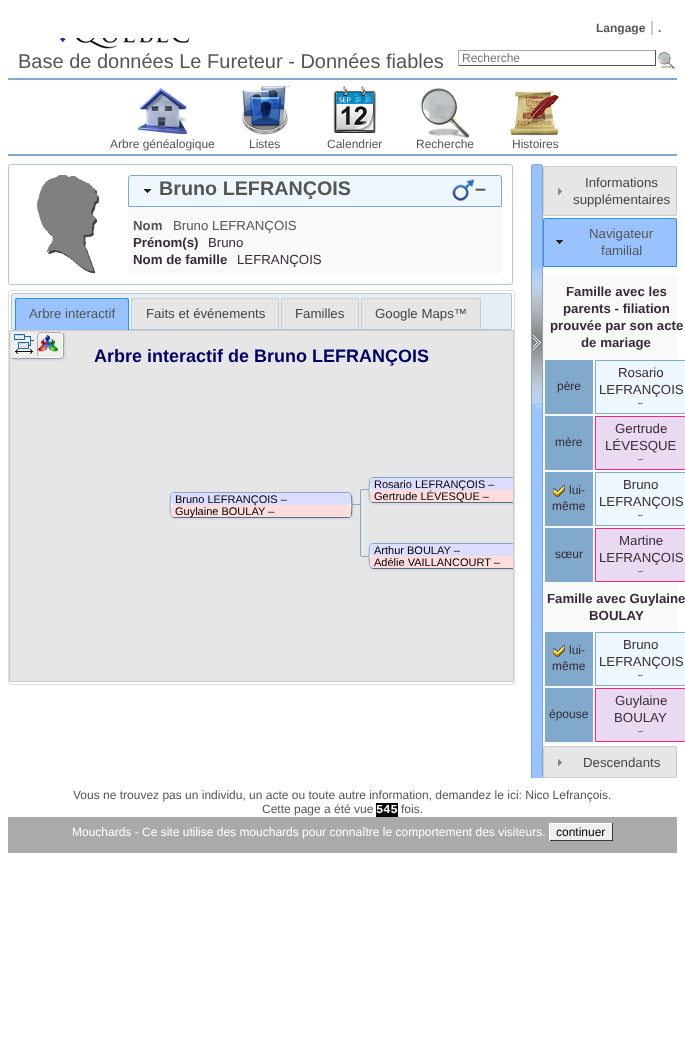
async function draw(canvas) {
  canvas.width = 685
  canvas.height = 1046
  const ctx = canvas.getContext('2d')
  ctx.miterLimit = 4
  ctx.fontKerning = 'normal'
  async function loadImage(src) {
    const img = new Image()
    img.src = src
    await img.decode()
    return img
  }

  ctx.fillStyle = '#fff'
  ctx.fillRect(0, 0, 685, 1046)
  ctx.font = 'bold 12px Liberation Sans'
  ctx.fillStyle = '#555'
  ctx.fillText('Langage', 596, 32)
  ctx.fillText('.', 658, 32)
  ctx.fillStyle = '#ccc'
  ctx.fillRect(651, 21, 2, 14)
  ctx.drawImage(await loadImage('image0.png'), 60, 38, 130, 11)
  ctx.font = '20px Liberation Sans'
  ctx.fillStyle = '#555'
  ctx.fillText('Base de données Le Fureteur - Données fiables', 18, 68)
  ctx.fillStyle = '#aaa'
  ctx.fillRect(458, 50, 198, 1)
  ctx.fillStyle = '#555'
  ctx.fillRect(655, 50, 1, 16)
  ctx.fillRect(458, 65, 198, 1)
  ctx.fillStyle = '#aaa'
  ctx.fillRect(458, 50, 1, 16)
  ctx.font = '12px Liberation Sans'
  ctx.fillStyle = '#757575'
  ctx.fillText('Recherche', 462, 62)
  ctx.drawImage(await loadImage('image1.png'), 658, 52, 17, 17)
  ctx.fillStyle = '#81a9cb'
  ctx.fillRect(8, 78, 669, 2)
  ctx.fillRect(8, 154, 669, 2)
  ctx.drawImage(await loadImage('image2.png'), 138, 88, 50, 46)
  ctx.fillStyle = '#555'
  ctx.fillText('Arbre généalogique', 110, 148)
  ctx.drawImage(await loadImage('image3.png'), 242, 85, 48, 50)
  ctx.fillText('Listes', 249, 148)
  ctx.drawImage(await loadImage('image4.png'), 333, 85, 44, 48)
  ctx.fillText('Calendrier', 327, 148)
  ctx.drawImage(await loadImage('image5.png'), 420, 88, 50, 50)
  ctx.fillText('Recherche', 416, 148)
  ctx.drawImage(await loadImage('image6.png'), 510, 91, 49, 45)
  ctx.fillText('Histoires', 512, 148)
  ctx.beginPath()
  ctx.roundRect(8.5, 164.5, 504, 120, 2.5)
  ctx.strokeStyle = '#b2c7d7'
  ctx.stroke()
  ctx.drawImage(await loadImage('image7.png'), 36, 175, 64, 99)
  ctx.fillStyle = '#edf7fd'
  ctx.beginPath()
  ctx.roundRect(128.5, 175.5, 373, 31, [2.5, 2.5, 0, 0])
  ctx.fill()
  ctx.strokeStyle = '#81a9cb'
  ctx.stroke()
  ctx.drawImage(await loadImage('image8.png'), 144, 189, 7, 4)
  ctx.font = 'bold 19.75px Liberation Sans'
  ctx.fillStyle = '#555'
  ctx.fillText('Bruno LEFRANÇOIS', 159, 195)
  ctx.drawImage(await loadImage('image9.png'), 452, 179, 22, 22)
  ctx.fillText('–', 475, 195)
  ctx.fillStyle = '#f9f9f9'
  ctx.beginPath()
  ctx.roundRect(128, 207, 374, 66, [0, 0, 3, 3])
  ctx.fill()
  ctx.font = 'bold 13.25px Liberation Sans'
  ctx.fillStyle = '#555'
  ctx.fillText('Nom', 133, 230)
  ctx.font = '13.25px Liberation Sans'
  ctx.fillText('Bruno LEFRANÇOIS', 173, 230)
  ctx.font = 'bold 13.25px Liberation Sans'
  ctx.fillStyle = '#362b36'
  ctx.fillText('Prénom(s)', 133, 247)
  ctx.font = '13.25px Liberation Sans'
  ctx.fillText('Bruno', 208, 247)
  ctx.font = 'bold 13.25px Liberation Sans'
  ctx.fillText('Nom de famille', 133, 264)
  ctx.font = '13.25px Liberation Sans'
  ctx.fillText('LEFRANÇOIS', 237, 264)
  ctx.beginPath()
  ctx.roundRect(8.5, 290.5, 506, 394, 2.5)
  ctx.strokeStyle = '#ddd'
  ctx.stroke()
  ctx.fillStyle = '#e7eef3'
  ctx.fillRect(11, 293, 501, 37)
  ctx.beginPath()
  ctx.roundRect(11.5, 293.5, 500, 36, 2.5)
  ctx.strokeStyle = '#b2c7d7'
  ctx.stroke()
  ctx.fillStyle = '#99c2ff'
  ctx.fillRect(15, 298, 114, 32)
  ctx.fillStyle = '#2694e8'
  ctx.beginPath()
  ctx.moveTo(18, 298)
  ctx.lineTo(126, 298)
  ctx.bezierCurveTo(128, 298, 129, 299, 129, 301)
  ctx.lineTo(129, 330)
  ctx.lineTo(15, 330)
  ctx.lineTo(15, 301)
  ctx.bezierCurveTo(15, 299, 16, 298, 18, 298)
  ctx.closePath()
  ctx.moveTo(18, 299)
  ctx.lineTo(126, 299)
  ctx.bezierCurveTo(127, 299, 128, 300, 128, 301)
  ctx.lineTo(128, 330)
  ctx.lineTo(16, 330)
  ctx.lineTo(16, 301)
  ctx.bezierCurveTo(16, 300, 17, 299, 18, 299)
  ctx.closePath()
  ctx.fill('evenodd')
  ctx.fillStyle = '#555'
  ctx.fillText('Arbre interactif', 29, 318)
  ctx.fillStyle = '#e6e6e6'
  ctx.fillRect(131, 298, 148, 31)
  ctx.fillStyle = '#ccc'
  ctx.beginPath()
  ctx.moveTo(134, 298)
  ctx.lineTo(276, 298)
  ctx.bezierCurveTo(278, 298, 279, 299, 279, 301)
  ctx.lineTo(279, 329)
  ctx.lineTo(131, 329)
  ctx.lineTo(131, 301)
  ctx.bezierCurveTo(131, 299, 132, 298, 134, 298)
  ctx.closePath()
  ctx.moveTo(134, 299)
  ctx.lineTo(276, 299)
  ctx.bezierCurveTo(277, 299, 278, 300, 278, 301)
  ctx.lineTo(278, 329)
  ctx.lineTo(132, 329)
  ctx.lineTo(132, 301)
  ctx.bezierCurveTo(132, 300, 133, 299, 134, 299)
  ctx.closePath()
  ctx.fill('evenodd')
  ctx.fillStyle = '#444'
  ctx.fillText('Faits et événements', 146, 318)
  ctx.fillStyle = '#e6e6e6'
  ctx.fillRect(281, 298, 78, 31)
  ctx.fillStyle = '#ccc'
  ctx.beginPath()
  ctx.moveTo(284, 298)
  ctx.lineTo(356, 298)
  ctx.bezierCurveTo(358, 298, 359, 299, 359, 301)
  ctx.lineTo(359, 329)
  ctx.lineTo(281, 329)
  ctx.lineTo(281, 301)
  ctx.bezierCurveTo(281, 299, 282, 298, 284, 298)
  ctx.closePath()
  ctx.moveTo(284, 299)
  ctx.lineTo(356, 299)
  ctx.bezierCurveTo(357, 299, 358, 300, 358, 301)
  ctx.lineTo(358, 329)
  ctx.lineTo(282, 329)
  ctx.lineTo(282, 301)
  ctx.bezierCurveTo(282, 300, 283, 299, 284, 299)
  ctx.closePath()
  ctx.fill('evenodd')
  ctx.fillStyle = '#444'
  ctx.fillText('Familles', 295, 318)
  ctx.fillStyle = '#e6e6e6'
  ctx.fillRect(361, 298, 120, 31)
  ctx.fillStyle = '#ccc'
  ctx.beginPath()
  ctx.moveTo(364, 298)
  ctx.lineTo(478, 298)
  ctx.bezierCurveTo(480, 298, 481, 299, 481, 301)
  ctx.lineTo(481, 329)
  ctx.lineTo(361, 329)
  ctx.lineTo(361, 301)
  ctx.bezierCurveTo(361, 299, 362, 298, 364, 298)
  ctx.closePath()
  ctx.moveTo(364, 299)
  ctx.lineTo(478, 299)
  ctx.bezierCurveTo(479, 299, 480, 300, 480, 301)
  ctx.lineTo(480, 329)
  ctx.lineTo(362, 329)
  ctx.lineTo(362, 301)
  ctx.bezierCurveTo(362, 300, 363, 299, 364, 299)
  ctx.closePath()
  ctx.fill('evenodd')
  ctx.fillStyle = '#444'
  ctx.fillText('Google Maps™', 375, 318)
  ctx.fillStyle = '#e6e6e6'
  ctx.beginPath()
  ctx.rect(9.5, 330.5, 504, 351)
  ctx.fill()
  ctx.strokeStyle = '#ccc'
  ctx.stroke()
  ctx.fillStyle = '#cfcfdf'
  ctx.filter = 'blur(1px)'
  ctx.beginPath()
  ctx.roundRect(11, 332, 54, 28, 4)
  ctx.fill()
  ctx.filter = 'none'
  ctx.fillStyle = '#efefef'
  ctx.beginPath()
  ctx.roundRect(10, 331, 54, 28, 4)
  ctx.fill()
  ctx.beginPath()
  ctx.moveTo(62.5, 332.5)
  ctx.bezierCurveTo(64.5, 335, 63.5, 342.5, 63.5, 345)
  ctx.bezierCurveTo(63.5, 358.5, 66, 358.5, 52.5, 358.5)
  ctx.lineTo(21.5, 358.5)
  ctx.bezierCurveTo(20.5, 358.5, 14, 359.5, 11.5, 357.5)
  ctx.strokeStyle = '#959595'
  ctx.stroke()
  ctx.save()
  ctx.beginPath()
  ctx.rect(10, 331, 503, 350)
  ctx.clip()
  ctx.beginPath()
  ctx.moveTo(11.5, 357.5)
  ctx.bezierCurveTo(9.5, 355, 10.5, 347.5, 10.5, 345)
  ctx.bezierCurveTo(10.5, 331.5, 8, 331.5, 21.5, 331.5)
  ctx.lineTo(52.5, 331.5)
  ctx.bezierCurveTo(53.5, 331.5, 60, 330.5, 62.5, 332.5)
  ctx.strokeStyle = '#dfdfdf'
  ctx.stroke()
  ctx.restore()
  ctx.beginPath()
  ctx.roundRect(11.5, 332.5, 25, 25, 3.5)
  ctx.fill()
  ctx.strokeStyle = '#efefef'
  ctx.stroke()
  ctx.drawImage(await loadImage('image10.png'), 14, 334, 20, 20)
  ctx.beginPath()
  ctx.roundRect(37, 332, 26, 26, 4)
  ctx.fill()
  ctx.beginPath()
  ctx.moveTo(61.5, 333.5)
  ctx.bezierCurveTo(63, 335, 62.5, 337, 62.5, 339)
  ctx.lineTo(62.5, 345)
  ctx.bezierCurveTo(62.5, 359, 64, 357.5, 50, 357.5)
  ctx.lineTo(44, 357.5)
  ctx.bezierCurveTo(42, 357.5, 40, 358, 38.5, 356.5)
  ctx.strokeStyle = '#fff'
  ctx.stroke()
  ctx.beginPath()
  ctx.moveTo(38.5, 356.5)
  ctx.bezierCurveTo(37, 355, 37.5, 353, 37.5, 351)
  ctx.lineTo(37.5, 345)
  ctx.bezierCurveTo(37.5, 331, 36, 332.5, 50, 332.5)
  ctx.lineTo(56, 332.5)
  ctx.bezierCurveTo(58, 332.5, 60, 332, 61.5, 333.5)
  ctx.strokeStyle = '#aaa'
  ctx.stroke()
  ctx.drawImage(await loadImage('image11.png'), 38, 335, 20, 17)
  ctx.font = 'bold 18px Liberation Sans'
  ctx.fillStyle = '#006'
  ctx.fillText('Arbre interactif de Bruno LEFRANÇOIS', 94, 362)
  ctx.fillStyle = '#cfcfdf'
  ctx.filter = 'blur(1px)'
  ctx.beginPath()
  ctx.roundRect(171, 493, 182, 26, 4)
  ctx.fill()
  ctx.filter = 'none'
  ctx.fillStyle = '#fffdfd'
  ctx.beginPath()
  ctx.roundRect(170, 492, 182, 26, 4)
  ctx.fill()
  ctx.beginPath()
  ctx.moveTo(350.5, 493.5)
  ctx.bezierCurveTo(352.5, 495.5, 352, 514, 351, 516)
  ctx.bezierCurveTo(350.5, 517, 349, 517.5, 348, 517.5)
  ctx.lineTo(174, 517.5)
  ctx.lineTo(171.5, 516.5)
  ctx.strokeStyle = '#567187'
  ctx.stroke()
  ctx.beginPath()
  ctx.moveTo(171.5, 516.5)
  ctx.bezierCurveTo(169.5, 514.5, 170, 496, 171, 494)
  ctx.bezierCurveTo(171.5, 493, 173, 492.5, 174, 492.5)
  ctx.lineTo(348, 492.5)
  ctx.lineTo(350.5, 493.5)
  ctx.strokeStyle = '#81a9cb'
  ctx.stroke()
  ctx.fillStyle = '#ddf'
  ctx.beginPath()
  ctx.roundRect(171, 493, 180, 12, 4)
  ctx.fill()
  ctx.fillStyle = '#fdd'
  ctx.beginPath()
  ctx.roundRect(171, 505, 180, 12, 4)
  ctx.fill()
  ctx.font = '11px Liberation Sans'
  ctx.fillStyle = '#000'
  ctx.fillText('Bruno LEFRANÇOIS –', 175, 503)
  ctx.fillText('Guylaine BOULAY –', 175, 515)
  ctx.fillStyle = '#81a9cb'
  ctx.fillRect(352, 504, 8, 1)
  ctx.drawImage(await loadImage('image12.png'), 360, 489, 1, 52)
  ctx.save()
  ctx.beginPath()
  ctx.rect(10, 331, 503, 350)
  ctx.clip()
  ctx.fillStyle = '#cfcfdf'
  ctx.filter = 'blur(1px)'
  ctx.beginPath()
  ctx.roundRect(370, 478, 182, 26, 4)
  ctx.fill()
  ctx.filter = 'none'
  ctx.restore()
  ctx.fillStyle = '#fffdfd'
  ctx.beginPath()
  ctx.roundRect(369, 477, 144, 26, [4, 0, 0, 4])
  ctx.fill()
  ctx.save()
  ctx.beginPath()
  ctx.rect(10, 331, 503, 350)
  ctx.clip()
  ctx.beginPath()
  ctx.moveTo(549.5, 478.5)
  ctx.bezierCurveTo(551.5, 480.5, 551, 499, 550, 501)
  ctx.bezierCurveTo(549.5, 502, 548, 502.5, 547, 502.5)
  ctx.lineTo(373, 502.5)
  ctx.lineTo(370.5, 501.5)
  ctx.strokeStyle = '#567187'
  ctx.stroke()
  ctx.beginPath()
  ctx.moveTo(370.5, 501.5)
  ctx.bezierCurveTo(368.5, 499.5, 369, 481, 370, 479)
  ctx.bezierCurveTo(370.5, 478, 372, 477.5, 373, 477.5)
  ctx.lineTo(547, 477.5)
  ctx.lineTo(549.5, 478.5)
  ctx.strokeStyle = '#81a9cb'
  ctx.stroke()
  ctx.restore()
  ctx.fillStyle = '#81a9cb'
  ctx.fillRect(361, 489, 8, 1)
  ctx.fillStyle = '#ddf'
  ctx.beginPath()
  ctx.roundRect(370, 478, 143, 12, [4, 0, 0, 4])
  ctx.fill()
  ctx.fillStyle = '#fdd'
  ctx.beginPath()
  ctx.roundRect(370, 490, 143, 12, [4, 0, 0, 4])
  ctx.fill()
  ctx.fillStyle = '#000'
  ctx.fillText('Rosario LEFRANÇOIS –', 374, 488)
  ctx.fillText('Gertrude LÉVESQUE –', 374, 500)
  ctx.fillStyle = '#81a9cc'
  ctx.fillRect(360, 541, 1, 15)
  ctx.save()
  ctx.beginPath()
  ctx.rect(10, 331, 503, 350)
  ctx.clip()
  ctx.fillStyle = '#cfcfdf'
  ctx.filter = 'blur(1px)'
  ctx.beginPath()
  ctx.roundRect(370, 544, 182, 26, 4)
  ctx.fill()
  ctx.filter = 'none'
  ctx.restore()
  ctx.fillStyle = '#fffdfd'
  ctx.beginPath()
  ctx.roundRect(369, 543, 144, 26, [4, 0, 0, 4])
  ctx.fill()
  ctx.save()
  ctx.beginPath()
  ctx.rect(10, 331, 503, 350)
  ctx.clip()
  ctx.beginPath()
  ctx.moveTo(549.5, 544.5)
  ctx.bezierCurveTo(551.5, 546.5, 551, 565, 550, 567)
  ctx.bezierCurveTo(549.5, 568, 548, 568.5, 547, 568.5)
  ctx.lineTo(373, 568.5)
  ctx.lineTo(370.5, 567.5)
  ctx.strokeStyle = '#567187'
  ctx.stroke()
  ctx.beginPath()
  ctx.moveTo(370.5, 567.5)
  ctx.bezierCurveTo(368.5, 565.5, 369, 547, 370, 545)
  ctx.bezierCurveTo(370.5, 544, 372, 543.5, 373, 543.5)
  ctx.lineTo(547, 543.5)
  ctx.lineTo(549.5, 544.5)
  ctx.strokeStyle = '#81a9cb'
  ctx.stroke()
  ctx.restore()
  ctx.fillStyle = '#81a9cb'
  ctx.fillRect(361, 556, 8, 1)
  ctx.fillStyle = '#ddf'
  ctx.beginPath()
  ctx.roundRect(370, 544, 143, 12, [4, 0, 0, 4])
  ctx.fill()
  ctx.fillStyle = '#000'
  ctx.fillText('Arthur BOULAY –', 374, 554)
  ctx.fillStyle = '#fdd'
  ctx.beginPath()
  ctx.roundRect(370, 556, 143, 12, [4, 0, 0, 4])
  ctx.fill()
  ctx.fillStyle = '#000'
  ctx.fillText('Adélie VAILLANCOURT –', 374, 566)
  ctx.fillStyle = '#99c2ff'
  ctx.beginPath()
  ctx.roundRect(531, 164, 12, 614, [3, 3, 0, 0])
  ctx.fill()
  ctx.drawImage(await loadImage('image13.png'), 532, 267, 10, 142)
  ctx.font = '12px Liberation Sans'
  ctx.fillStyle = '#555'
  ctx.fillText('Vous ne trouvez pas un individu, un acte ou toute autre information, demandez le ici: Nico Lefrançois.', 73, 799)
  ctx.fillStyle = '#aaa'
  ctx.fillRect(8, 817, 669, 36)
  ctx.fillStyle = '#fff'
  ctx.fillText('Mouchards - Ce site utilise des mouchards pour connaître le comportement des visiteurs.', 72, 836)
  ctx.save()
  ctx.beginPath()
  ctx.rect(513, 164, 30, 614)
  ctx.clip()
  ctx.beginPath()
  ctx.moveTo(534, 164.5)
  ctx.lineTo(540, 164.5)
  ctx.bezierCurveTo(541.5, 164.5, 542.5, 165.5, 542.5, 167)
  ctx.lineTo(542.5, 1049.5)
  ctx.lineTo(531.5, 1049.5)
  ctx.lineTo(531.5, 167)
  ctx.bezierCurveTo(531.5, 165.5, 532.5, 164.5, 534, 164.5)
  ctx.closePath()
  ctx.stroke()
  ctx.restore()
  ctx.fillStyle = '#e6e6e6'
  ctx.fillRect(543, 166, 134, 50)
  ctx.beginPath()
  ctx.roundRect(543.5, 166.5, 133, 49, 2.5)
  ctx.strokeStyle = '#ccc'
  ctx.stroke()
  ctx.font = '13.25px Liberation Sans'
  ctx.fillStyle = '#444'
  ctx.fillText('Informations', 585, 187)
  ctx.drawImage(await loadImage('image14.png'), 558, 188, 4, 7)
  ctx.fillText('supplémentaires', 573, 204)
  ctx.fillStyle = '#99c2ff'
  ctx.fillRect(544, 221, 132, 45)
  ctx.fillRect(543, 218, 134, 3)
  ctx.beginPath()
  ctx.roundRect(543.5, 218.5, 133, 48, [2.5, 2.5, 0, 0])
  ctx.strokeStyle = '#2694e8'
  ctx.stroke()
  ctx.fillStyle = '#555'
  ctx.fillText('Navigateur', 589, 238)
  ctx.drawImage(await loadImage('image15.png'), 556, 240, 7, 4)
  ctx.fillText('familial', 601, 255)
  ctx.fillStyle = '#f9f9f9'
  ctx.beginPath()
  ctx.roundRect(543, 275, 134, 469, [0, 0, 3, 3])
  ctx.fill()
  ctx.font = 'bold 13.25px Liberation Sans'
  ctx.fillStyle = '#362b36'
  ctx.fillText('Famille avec les', 566, 296)
  ctx.fillText('parents - filiation', 563, 313)
  ctx.fillText('prouvée par son acte', 550, 330)
  ctx.fillText('de mariage', 581, 347)
  ctx.fillStyle = '#81a9cb'
  ctx.fillRect(545, 360, 48, 54)
  ctx.font = '12px Liberation Sans'
  ctx.fillStyle = '#362b36'
  ctx.fillText('père', 557, 390)
  ctx.fillStyle = '#edf7fd'
  ctx.beginPath()
  ctx.rect(595.5, 360.5, 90, 53)
  ctx.fill()
  ctx.strokeStyle = '#81a9cb'
  ctx.stroke()
  ctx.font = '13.25px Liberation Sans'
  ctx.fillStyle = '#362b36'
  ctx.fillText('Rosario', 618, 377)
  ctx.fillText('LEFRANÇOIS', 599, 394)
  ctx.font = '9px Liberation Sans'
  ctx.fillText('–', 638, 406)
  ctx.fillStyle = '#81a9cb'
  ctx.fillRect(545, 416, 48, 54)
  ctx.font = '12px Liberation Sans'
  ctx.fillStyle = '#362b36'
  ctx.fillText('mère', 555, 446)
  ctx.fillStyle = '#e9daf1'
  ctx.beginPath()
  ctx.rect(595.5, 416.5, 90, 53)
  ctx.fill()
  ctx.strokeStyle = '#ff2080'
  ctx.stroke()
  ctx.font = '13.25px Liberation Sans'
  ctx.fillStyle = '#362b36'
  ctx.fillText('Gertrude', 615, 433)
  ctx.fillText('LÉVESQUE', 605, 450)
  ctx.font = '9px Liberation Sans'
  ctx.fillText('–', 638, 462)
  ctx.fillStyle = '#81a9cb'
  ctx.fillRect(545, 472, 48, 54)
  ctx.drawImage(await loadImage('image16.png'), 553, 485, 12, 12)
  ctx.font = '12px Liberation Sans'
  ctx.fillStyle = '#362b36'
  ctx.fillText('lui-', 569, 494)
  ctx.fillText('même', 552, 510)
  ctx.fillStyle = '#edf7fd'
  ctx.beginPath()
  ctx.rect(595.5, 472.5, 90, 53)
  ctx.fill()
  ctx.strokeStyle = '#81a9cb'
  ctx.stroke()
  ctx.font = '13.25px Liberation Sans'
  ctx.fillStyle = '#362b36'
  ctx.fillText('Bruno', 623, 489)
  ctx.fillText('LEFRANÇOIS', 599, 506)
  ctx.font = '9px Liberation Sans'
  ctx.fillText('–', 638, 518)
  ctx.fillStyle = '#81a9cb'
  ctx.fillRect(545, 528, 48, 54)
  ctx.font = '12px Liberation Sans'
  ctx.fillStyle = '#362b36'
  ctx.fillText('sœur', 555, 558)
  ctx.fillStyle = '#e9daf1'
  ctx.beginPath()
  ctx.rect(595.5, 528.5, 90, 53)
  ctx.fill()
  ctx.strokeStyle = '#ff2080'
  ctx.stroke()
  ctx.font = '13.25px Liberation Sans'
  ctx.fillStyle = '#362b36'
  ctx.fillText('Martine', 619, 545)
  ctx.fillText('LEFRANÇOIS', 599, 562)
  ctx.font = '9px Liberation Sans'
  ctx.fillText('–', 638, 574)
  ctx.font = 'bold 13.25px Liberation Sans'
  ctx.fillText('Famille avec Guylaine', 547, 603)
  ctx.fillText('BOULAY', 589, 620)
  ctx.fillStyle = '#81a9cb'
  ctx.fillRect(545, 632, 48, 54)
  ctx.drawImage(await loadImage('image16.png'), 553, 645, 12, 12)
  ctx.font = '12px Liberation Sans'
  ctx.fillStyle = '#362b36'
  ctx.fillText('lui-', 569, 654)
  ctx.fillText('même', 552, 670)
  ctx.fillStyle = '#edf7fd'
  ctx.beginPath()
  ctx.rect(595.5, 632.5, 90, 53)
  ctx.fill()
  ctx.strokeStyle = '#81a9cb'
  ctx.stroke()
  ctx.font = '13.25px Liberation Sans'
  ctx.fillStyle = '#362b36'
  ctx.fillText('Bruno', 623, 649)
  ctx.fillText('LEFRANÇOIS', 599, 666)
  ctx.font = '9px Liberation Sans'
  ctx.fillText('–', 638, 678)
  ctx.fillStyle = '#81a9cb'
  ctx.fillRect(545, 688, 48, 54)
  ctx.font = '12px Liberation Sans'
  ctx.fillStyle = '#362b36'
  ctx.fillText('épouse', 549, 718)
  ctx.fillStyle = '#e9daf1'
  ctx.beginPath()
  ctx.rect(595.5, 688.5, 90, 53)
  ctx.fill()
  ctx.strokeStyle = '#ff2080'
  ctx.stroke()
  ctx.font = '13.25px Liberation Sans'
  ctx.fillStyle = '#362b36'
  ctx.fillText('Guylaine', 615, 705)
  ctx.fillText('BOULAY', 614, 722)
  ctx.font = '9px Liberation Sans'
  ctx.fillText('–', 638, 734)
  ctx.fillStyle = '#e6e6e6'
  ctx.fillRect(543, 746, 134, 32)
  ctx.beginPath()
  ctx.roundRect(543.5, 746.5, 133, 31, 2.5)
  ctx.strokeStyle = '#ccc'
  ctx.stroke()
  ctx.drawImage(await loadImage('image14.png'), 558, 759, 4, 7)
  ctx.font = '13.25px Liberation Sans'
  ctx.fillStyle = '#444'
  ctx.fillText('Descendants', 583, 767)
  ctx.font = '12px Liberation Sans'
  ctx.fillStyle = '#555'
  ctx.fillText('Cette page a été vue', 262, 813)
  ctx.fillStyle = '#000'
  ctx.fillRect(376, 803, 22, 14)
  ctx.font = 'bold 12px Liberation Mono'
  ctx.fillStyle = '#fff'
  ctx.fillText('545', 376, 813)
  ctx.font = '12px Liberation Sans'
  ctx.fillStyle = '#555'
  ctx.fillText('fois.', 401, 813)
  ctx.fillStyle = '#efefef'
  ctx.fillRect(550, 824, 62, 16)
  ctx.fillStyle = '#fff'
  ctx.fillRect(549, 823, 64, 1)
  ctx.fillStyle = '#393939'
  ctx.fillRect(612, 823, 1, 18)
  ctx.fillRect(549, 840, 64, 1)
  ctx.fillStyle = '#fff'
  ctx.fillRect(549, 823, 1, 18)
  ctx.fillStyle = '#000'
  ctx.fillText('continuer', 556, 836)
}

draw(document.querySelector('canvas'))
